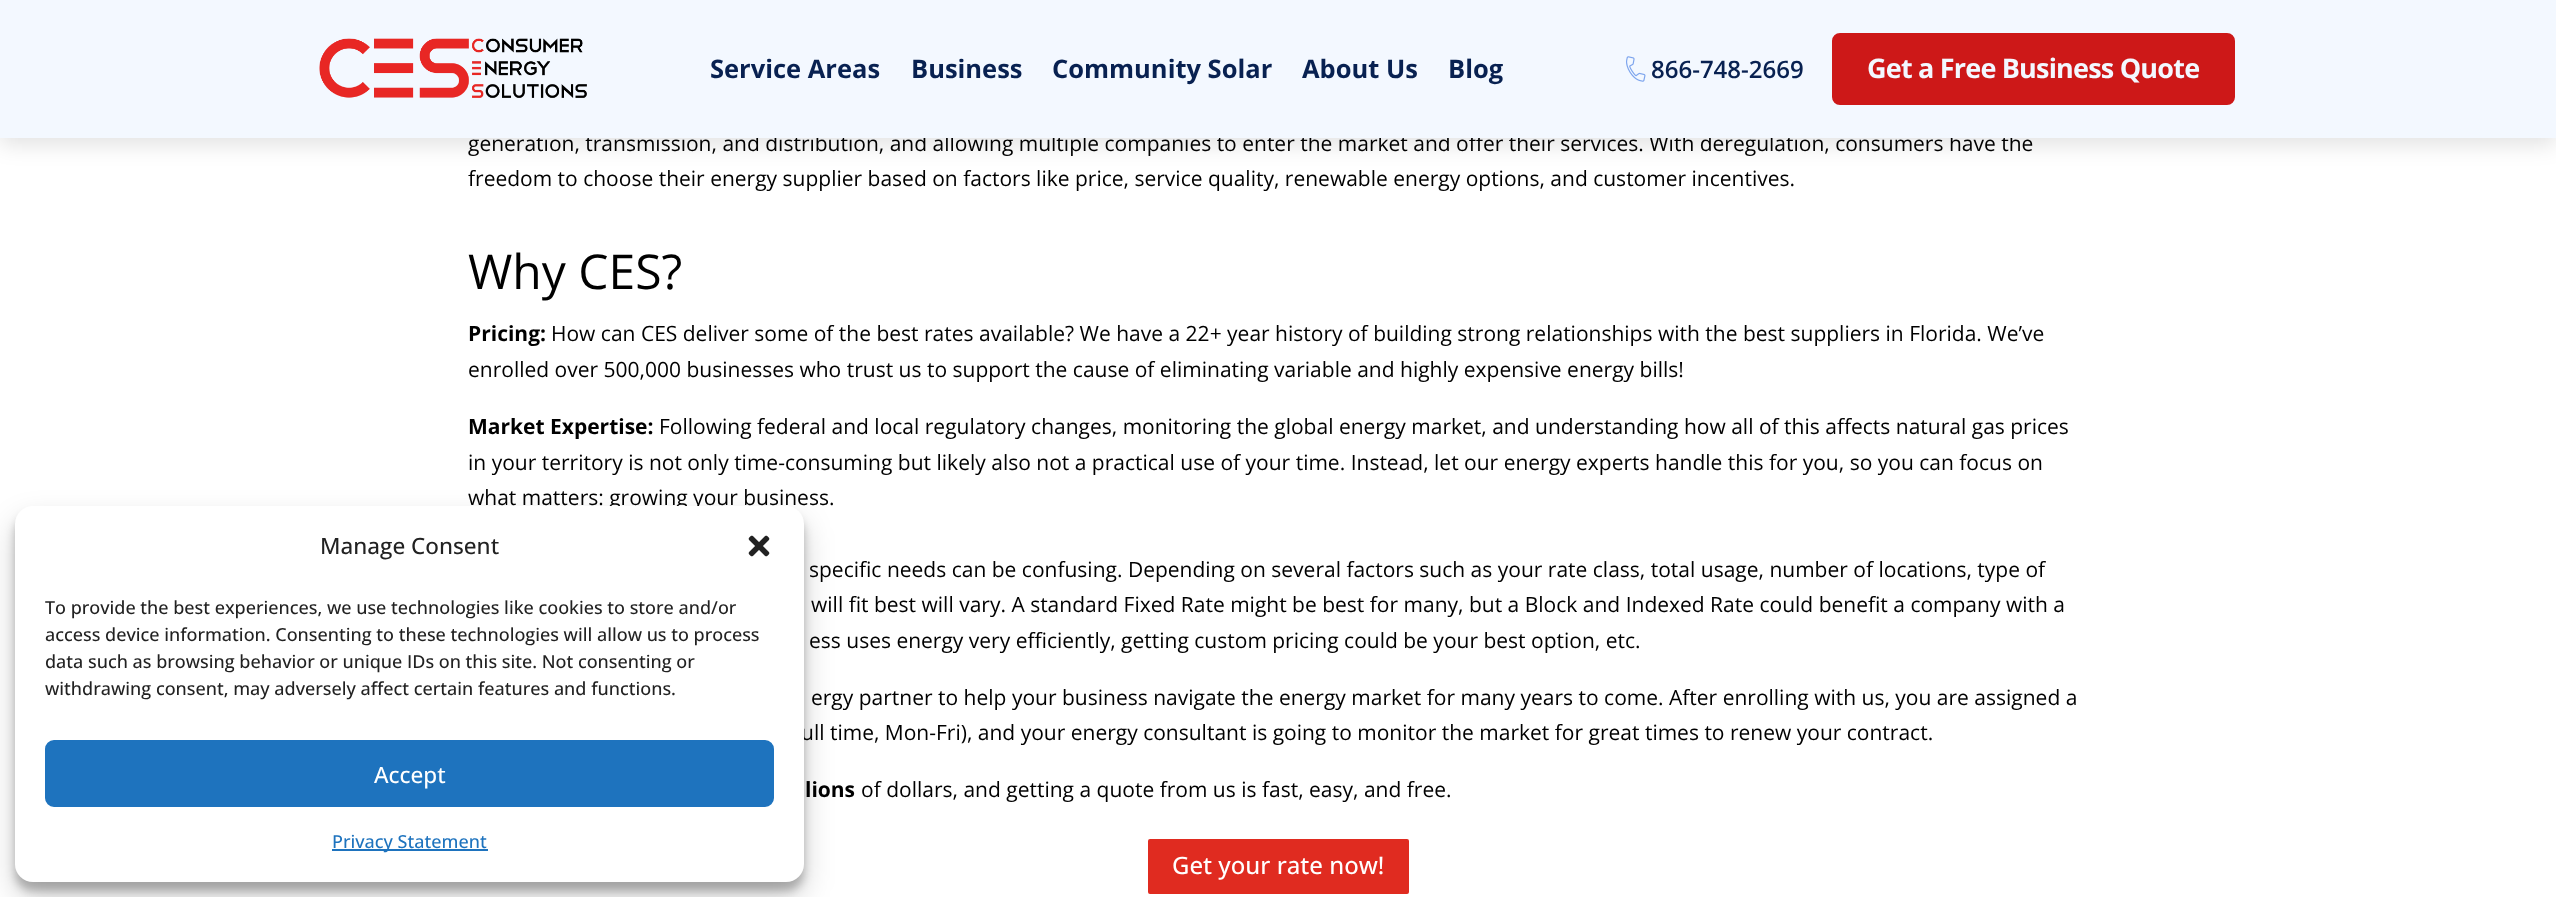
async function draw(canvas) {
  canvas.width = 2556
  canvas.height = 897
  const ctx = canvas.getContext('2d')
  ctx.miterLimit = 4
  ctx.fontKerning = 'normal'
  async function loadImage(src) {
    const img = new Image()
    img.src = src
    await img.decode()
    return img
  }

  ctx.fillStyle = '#fff'
  ctx.fillRect(0, 0, 2556, 897)
  ctx.fillStyle = '#0000003b'
  ctx.filter = 'blur(4.5px)'
  ctx.beginPath()
  ctx.roundRect(15, 515, 789, 376, 18)
  ctx.fill()
  ctx.filter = 'none'
  ctx.fillStyle = '#00000030'
  ctx.filter = 'blur(15px)'
  ctx.beginPath()
  ctx.roundRect(15, 521, 789, 376, 18)
  ctx.fill()
  ctx.filter = 'none'
  ctx.font = '21px Open Sans'
  ctx.fillStyle = '#000'
  ctx.fillText('what matters: growing your business.', 468, 505)
  ctx.fillText('ull time, Mon-Fri), and your energy consultant is going to monitor the market for great times to renew your contract.', 801, 740)
  ctx.fillStyle = '#fff'
  ctx.beginPath()
  ctx.roundRect(15, 506, 789, 376, 18)
  ctx.fill()
  ctx.font = '500 22.5px Open Sans'
  ctx.fillStyle = '#222'
  ctx.fillText('Manage Consent', 320, 554)
  ctx.drawImage(await loadImage('image0.png'), 748, 535, 22, 22)
  ctx.font = '500 18px Open Sans'
  ctx.fillText('To provide the best experiences, we use technologies like cookies to store and/or', 45, 614)
  ctx.fillText('access device information. Consenting to these technologies will allow us to process', 45, 641)
  ctx.fillText('data such as browsing behavior or unique IDs on this site. Not consenting or', 45, 668)
  ctx.fillText('withdrawing consent, may adversely affect certain features and functions.', 45, 695)
  ctx.fillStyle = '#1e73be'
  ctx.beginPath()
  ctx.roundRect(46, 741, 727, 65, 8)
  ctx.fill()
  ctx.strokeStyle = '#1e73be'
  ctx.lineWidth = 2
  ctx.stroke()
  ctx.font = '500 22.5px Open Sans'
  ctx.fillStyle = '#fff'
  ctx.fillText('Accept', 374, 783)
  ctx.fillStyle = '#1e73be'
  ctx.fillRect(332, 849, 156, 2)
  ctx.font = '500 18px Open Sans'
  ctx.fillText('Privacy Statement', 332, 848)
  ctx.fillStyle = '#0000001f'
  ctx.filter = 'blur(11px)'
  ctx.beginPath()
  ctx.rect(0, 6, 2556, 138)
  ctx.fill()
  ctx.filter = 'none'
  ctx.font = '21px Open Sans'
  ctx.fillStyle = '#000'
  ctx.fillText('generation, transmission, and distribution, and allowing multiple companies to enter the market and offer their services. With deregulation, consumers have the', 468, 151)
  ctx.fillStyle = '#f3f8ff'
  ctx.fillRect(0, 0, 2556, 138)
  ctx.drawImage(await loadImage('image1.png'), 319, 38, 268, 60)
  ctx.font = 'bold 25.5px Open Sans'
  ctx.fillStyle = '#082151'
  ctx.fillText('Service Areas', 710, 78)
  ctx.fillText('Business', 911, 78)
  ctx.fillText('Community Solar', 1052, 78)
  ctx.fillText('About Us', 1302, 78)
  ctx.fillText('Blog', 1448, 78)
  ctx.drawImage(await loadImage('image2.png'), 1626, 56, 20, 26)
  ctx.font = '600 24px Open Sans'
  ctx.fillText('866-748-2669', 1651, 78)
  ctx.fillStyle = '#cd1818'
  ctx.beginPath()
  ctx.roundRect(1833, 34, 401, 70, 7)
  ctx.fill()
  ctx.strokeStyle = '#cd1818'
  ctx.stroke()
  ctx.letterSpacing = '-0.8px'
  ctx.font = 'bold 27px Open Sans'
  ctx.fillStyle = '#f3f8ff'
  ctx.fillText('Get a Free Business Quote', 1867, 78)
  ctx.letterSpacing = '0px'
  ctx.font = '21px Open Sans'
  ctx.fillStyle = '#000'
  ctx.fillText('freedom to choose their energy supplier based on factors like price, service quality, renewable energy options, and customer incentives.', 468, 186)
  ctx.font = '48px Open Sans'
  ctx.fillText('Why CES?', 468, 289)
  ctx.font = 'bold 21px Open Sans'
  ctx.fillText('Pricing:', 468, 341)
  ctx.font = '21px Open Sans'
  ctx.fillText('How can CES deliver some of the best rates available? We have a 22+ year history of building strong relationships with the best suppliers in Florida. We’ve', 551, 341)
  ctx.fillText('enrolled over 500,000 businesses who trust us to support the cause of eliminating variable and highly expensive energy bills!', 468, 377)
  ctx.font = 'bold 21px Open Sans'
  ctx.fillText('Market Expertise:', 468, 434)
  ctx.font = '21px Open Sans'
  ctx.fillText('Following federal and local regulatory changes, monitoring the global energy market, and understanding how all of this affects natural gas prices', 659, 434)
  ctx.fillText('in your territory is not only time-consuming but likely also not a practical use of your time. Instead, let our energy experts handle this for you, so you can focus on', 468, 470)
  ctx.fillText('specific needs can be confusing. Depending on several factors such as your rate class, total usage, number of locations, type of', 809, 577)
  ctx.fillText('will fit best will vary. A standard Fixed Rate might be best for many, but a Block and Indexed Rate could benefit a company with a', 811, 612)
  ctx.fillText('ess uses energy very efficiently, getting custom pricing could be your best option, etc.', 809, 648)
  ctx.fillText('ergy partner to help your business navigate the energy market for many years to come. After enrolling with us, you are assigned a', 811, 705)
  ctx.font = 'bold 21px Open Sans'
  ctx.fillText('lions', 805, 797)
  ctx.font = '21px Open Sans'
  ctx.fillText('of dollars, and getting a quote from us is fast, easy, and free.', 861, 797)
  ctx.fillStyle = '#e02b20'
  ctx.beginPath()
  ctx.roundRect(1146.5, 837.5, 264, 58, 3.5)
  ctx.fill()
  ctx.strokeStyle = '#fff'
  ctx.lineWidth = 3
  ctx.stroke()
  ctx.font = '500 24px Open Sans'
  ctx.fillStyle = '#fff'
  ctx.fillText('Get your rate now!', 1172, 874)
}

draw(document.querySelector('canvas'))
